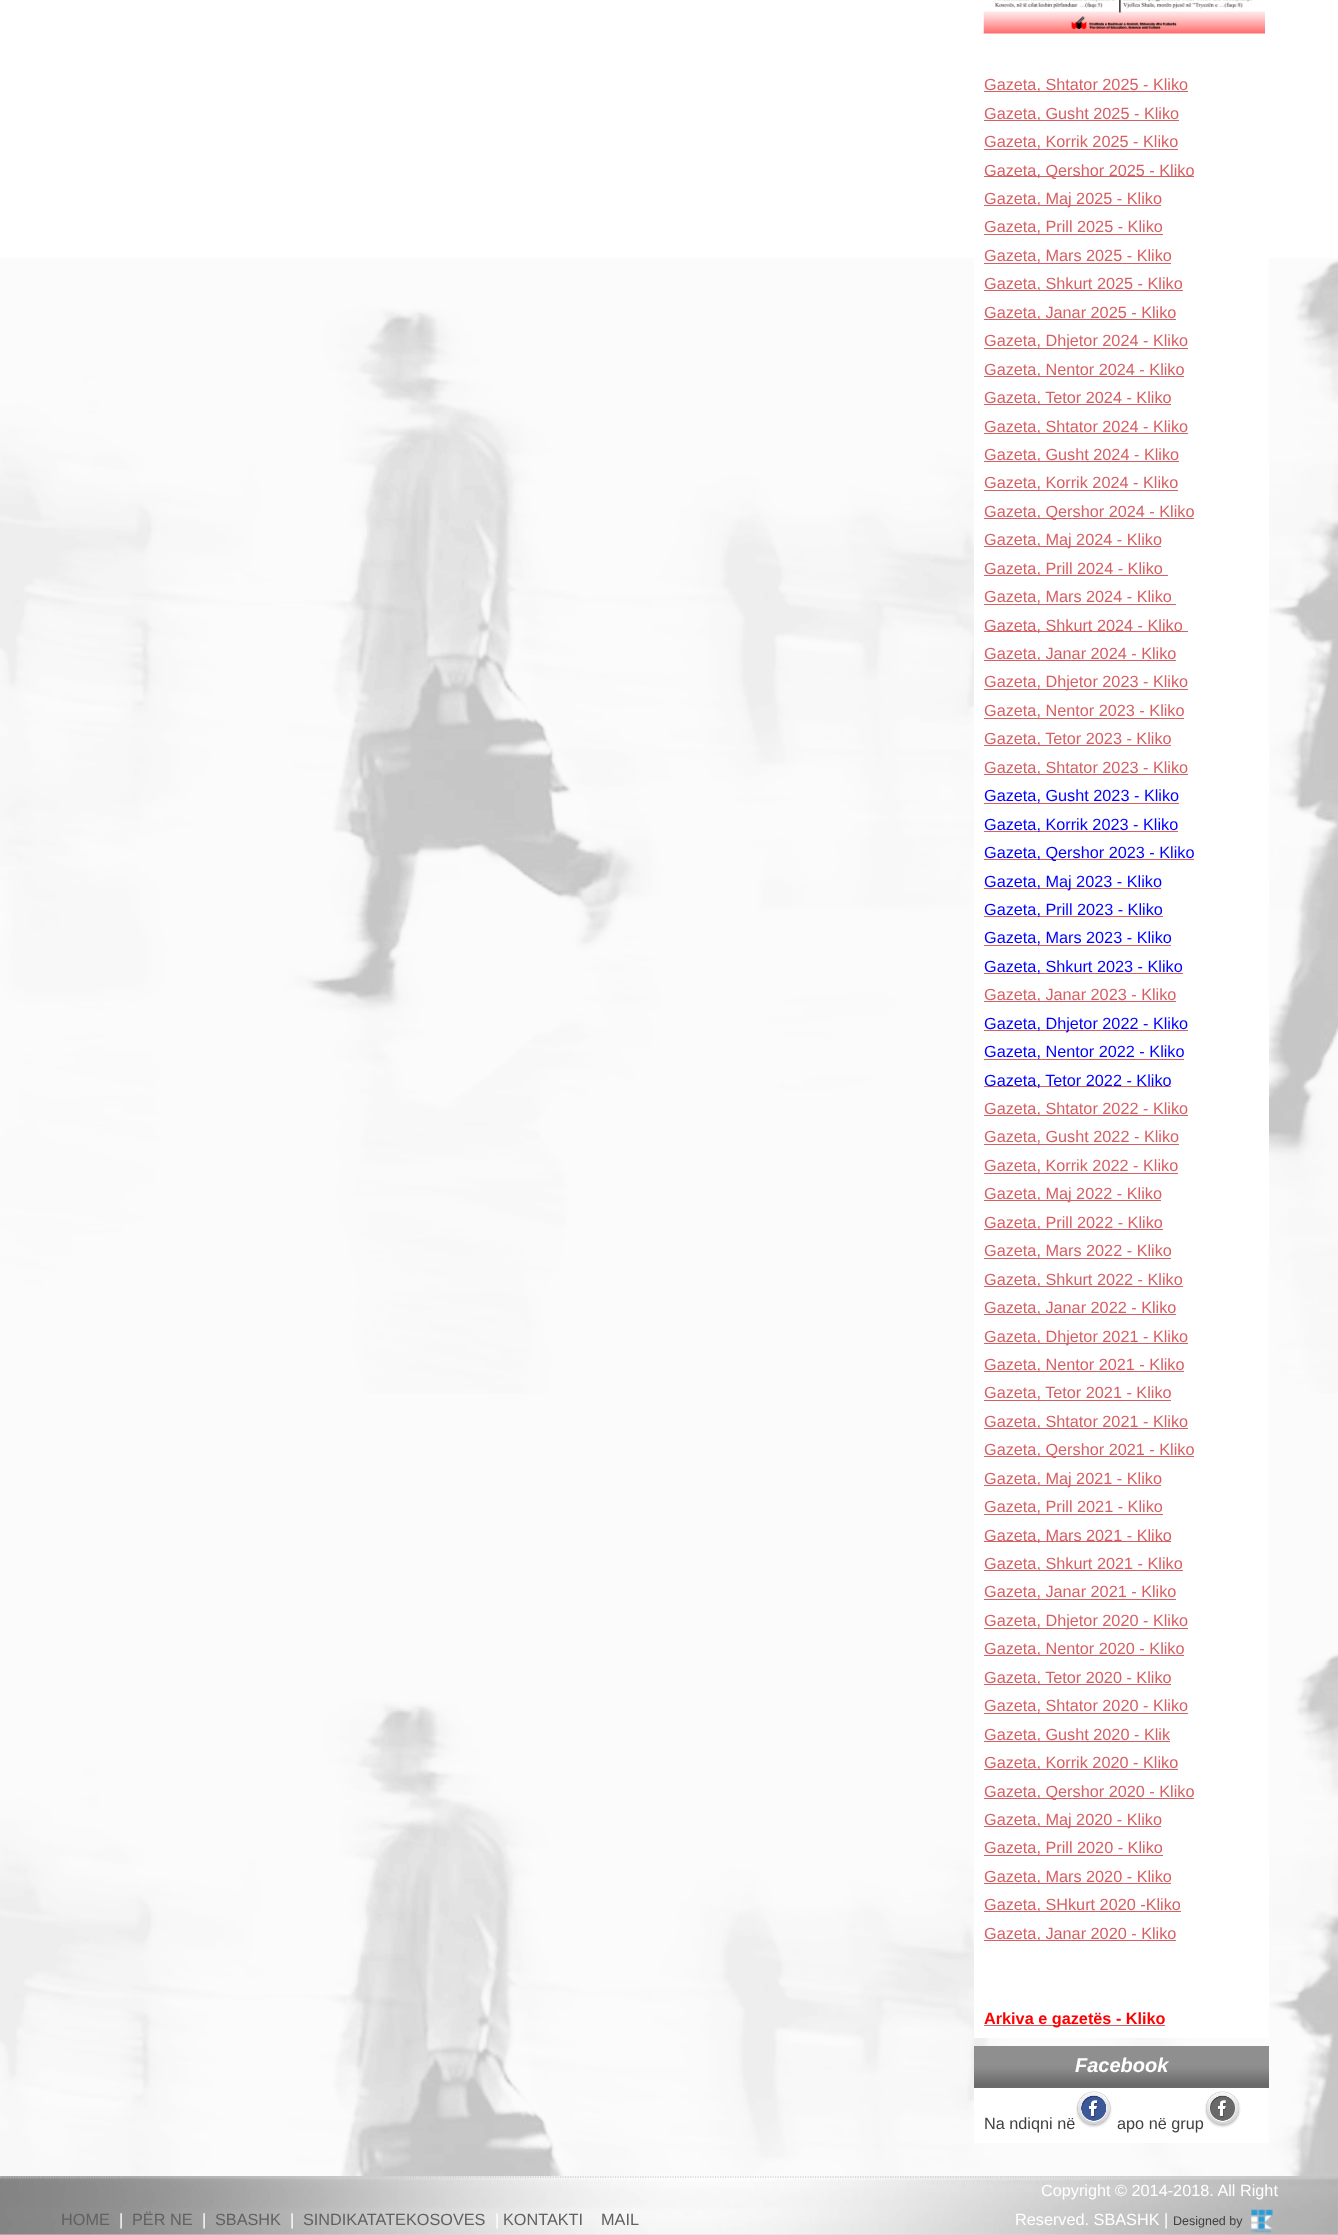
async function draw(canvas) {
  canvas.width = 1338
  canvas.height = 2235
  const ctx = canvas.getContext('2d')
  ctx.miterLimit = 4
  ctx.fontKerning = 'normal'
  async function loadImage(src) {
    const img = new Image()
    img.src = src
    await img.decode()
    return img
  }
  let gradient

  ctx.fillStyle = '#fff'
  ctx.fillRect(0, 0, 1338, 2235)
  ctx.drawImage(await loadImage('image0.png'), 0, 258, 1338, 1918)
  ctx.fillRect(974, 258, 295, 1780)
  ctx.drawImage(await loadImage('image1.png'), 983, 0, 282, 34)
  ctx.fillStyle = '#d76064'
  ctx.fillRect(984, 91, 204, 1)
  ctx.font = '16.25px Liberation Sans'
  ctx.fillText('Gazeta, Shtator 2025 - Kliko', 984, 90)
  ctx.fillRect(984, 120, 195, 1)
  ctx.fillText('Gazeta, Gusht 2025 - Kliko', 984, 119)
  ctx.fillRect(984, 149, 194, 1)
  ctx.fillText('Gazeta, Korrik 2025 - Kliko', 984, 147)
  ctx.fillRect(984, 176, 210, 1)
  ctx.fillText('Gazeta, Qershor 2025 - Kliko', 984, 176)
  ctx.fillRect(984, 205, 177, 1)
  ctx.fillText('Gazeta, Maj 2025 - Kliko', 984, 204)
  ctx.fillRect(984, 234, 179, 1)
  ctx.fillText('Gazeta, Prill 2025 - Kliko', 984, 232)
  ctx.fillRect(984, 263, 187, 1)
  ctx.fillText('Gazeta, Mars 2025 - Kliko', 984, 261)
  ctx.fillRect(984, 290, 199, 1)
  ctx.fillText('Gazeta, Shkurt 2025 - Kliko', 984, 289)
  ctx.fillRect(984, 319, 192, 1)
  ctx.fillText('Gazeta, Janar 2025 - Kliko', 984, 318)
  ctx.fillRect(984, 348, 204, 1)
  ctx.fillText('Gazeta, Dhjetor 2024 - Kliko', 984, 346)
  ctx.fillRect(984, 376, 200, 1)
  ctx.fillText('Gazeta, Nentor 2024 - Kliko', 984, 375)
  ctx.fillRect(984, 404, 187, 1)
  ctx.fillText('Gazeta, Tetor 2024 - Kliko', 984, 403)
  ctx.fillRect(984, 433, 204, 1)
  ctx.fillText('Gazeta, Shtator 2024 - Kliko', 984, 432)
  ctx.fillRect(984, 461, 195, 1)
  ctx.fillText('Gazeta, Gusht 2024 - Kliko', 984, 460)
  ctx.fillRect(984, 490, 194, 1)
  ctx.fillText('Gazeta, Korrik 2024 - Kliko', 984, 488)
  ctx.fillRect(984, 518, 210, 1)
  ctx.fillText('Gazeta, Qershor 2024 - Kliko', 984, 517)
  ctx.fillRect(984, 546, 177, 1)
  ctx.fillText('Gazeta, Maj 2024 - Kliko', 984, 545)
  ctx.fillRect(984, 575, 184, 1)
  ctx.fillText('Gazeta, Prill 2024 - Kliko', 984, 574)
  ctx.fillRect(984, 604, 192, 1)
  ctx.fillText('Gazeta, Mars 2024 - Kliko', 984, 602)
  ctx.fillRect(984, 631, 204, 1)
  ctx.fillText('Gazeta, Shkurt 2024 - Kliko', 984, 631)
  ctx.fillRect(984, 660, 192, 1)
  ctx.fillText('Gazeta, Janar 2024 - Kliko', 984, 659)
  ctx.fillRect(984, 689, 204, 1)
  ctx.fillText('Gazeta, Dhjetor 2023 - Kliko', 984, 687)
  ctx.fillRect(984, 718, 200, 1)
  ctx.fillText('Gazeta, Nentor 2023 - Kliko', 984, 716)
  ctx.fillRect(984, 745, 187, 1)
  ctx.fillText('Gazeta, Tetor 2023 - Kliko', 984, 744)
  ctx.fillRect(984, 774, 204, 1)
  ctx.fillText('Gazeta, Shtator 2023 - Kliko', 984, 773)
  ctx.fillRect(984, 803, 195, 1)
  ctx.fillStyle = '#00f'
  ctx.fillText('Gazeta, Gusht 2023 - Kliko', 984, 801)
  ctx.fillStyle = '#d76064'
  ctx.fillRect(984, 831, 194, 1)
  ctx.fillStyle = '#00f'
  ctx.fillText('Gazeta, Korrik 2023 - Kliko', 984, 830)
  ctx.fillStyle = '#d76064'
  ctx.fillRect(984, 859, 210, 1)
  ctx.fillStyle = '#00f'
  ctx.fillText('Gazeta, Qershor 2023 - Kliko', 984, 858)
  ctx.fillStyle = '#d76064'
  ctx.fillRect(984, 888, 177, 1)
  ctx.fillStyle = '#00f'
  ctx.fillText('Gazeta, Maj 2023 - Kliko', 984, 887)
  ctx.fillStyle = '#d76064'
  ctx.fillRect(984, 916, 179, 1)
  ctx.fillStyle = '#00f'
  ctx.fillText('Gazeta, Prill 2023 - Kliko', 984, 915)
  ctx.fillStyle = '#d76064'
  ctx.fillRect(984, 945, 187, 1)
  ctx.fillStyle = '#00f'
  ctx.fillText('Gazeta, Mars 2023 - Kliko', 984, 943)
  ctx.fillStyle = '#d76064'
  ctx.fillRect(984, 973, 199, 1)
  ctx.fillStyle = '#00f'
  ctx.fillText('Gazeta, Shkurt 2023 - Kliko', 984, 972)
  ctx.fillStyle = '#d76064'
  ctx.fillRect(984, 1001, 192, 1)
  ctx.fillText('Gazeta, Janar 2023 - Kliko', 984, 1000)
  ctx.fillRect(984, 1030, 204, 1)
  ctx.fillStyle = '#00f'
  ctx.fillText('Gazeta, Dhjetor 2022 - Kliko', 984, 1029)
  ctx.fillStyle = '#d76064'
  ctx.fillRect(984, 1059, 200, 1)
  ctx.fillStyle = '#00f'
  ctx.fillText('Gazeta, Nentor 2022 - Kliko', 984, 1057)
  ctx.fillStyle = '#d76064'
  ctx.fillRect(984, 1086, 187, 1)
  ctx.fillStyle = '#00f'
  ctx.fillText('Gazeta, Tetor 2022 - Kliko', 984, 1086)
  ctx.fillStyle = '#d76064'
  ctx.fillRect(984, 1115, 204, 1)
  ctx.fillText('Gazeta, Shtator 2022 - Kliko', 984, 1114)
  ctx.fillRect(984, 1144, 195, 1)
  ctx.fillText('Gazeta, Gusht 2022 - Kliko', 984, 1142)
  ctx.fillRect(984, 1173, 194, 1)
  ctx.fillText('Gazeta, Korrik 2022 - Kliko', 984, 1171)
  ctx.fillRect(984, 1200, 177, 1)
  ctx.fillText('Gazeta, Maj 2022 - Kliko', 984, 1199)
  ctx.fillRect(984, 1229, 179, 1)
  ctx.fillText('Gazeta, Prill 2022 - Kliko', 984, 1228)
  ctx.fillRect(984, 1258, 187, 1)
  ctx.fillText('Gazeta, Mars 2022 - Kliko', 984, 1256)
  ctx.fillRect(984, 1286, 199, 1)
  ctx.fillText('Gazeta, Shkurt 2022 - Kliko', 984, 1285)
  ctx.fillRect(984, 1314, 192, 1)
  ctx.fillText('Gazeta, Janar 2022 - Kliko', 984, 1313)
  ctx.fillRect(984, 1343, 204, 1)
  ctx.fillText('Gazeta, Dhjetor 2021 - Kliko', 984, 1342)
  ctx.fillRect(984, 1371, 200, 1)
  ctx.fillText('Gazeta, Nentor 2021 - Kliko', 984, 1370)
  ctx.fillRect(984, 1400, 187, 1)
  ctx.fillText('Gazeta, Tetor 2021 - Kliko', 984, 1398)
  ctx.fillRect(984, 1428, 204, 1)
  ctx.fillText('Gazeta, Shtator 2021 - Kliko', 984, 1427)
  ctx.fillRect(984, 1456, 210, 1)
  ctx.fillText('Gazeta, Qershor 2021 - Kliko', 984, 1455)
  ctx.fillRect(984, 1485, 177, 1)
  ctx.fillText('Gazeta, Maj 2021 - Kliko', 984, 1484)
  ctx.fillRect(984, 1514, 179, 1)
  ctx.fillText('Gazeta, Prill 2021 - Kliko', 984, 1512)
  ctx.fillRect(984, 1541, 187, 1)
  ctx.fillText('Gazeta, Mars 2021 - Kliko', 984, 1541)
  ctx.fillRect(984, 1570, 199, 1)
  ctx.fillText('Gazeta, Shkurt 2021 - Kliko', 984, 1569)
  ctx.fillRect(984, 1599, 192, 1)
  ctx.fillText('Gazeta, Janar 2021 - Kliko', 984, 1597)
  ctx.fillRect(984, 1628, 204, 1)
  ctx.fillText('Gazeta, Dhjetor 2020 - Kliko', 984, 1626)
  ctx.fillRect(984, 1655, 200, 1)
  ctx.fillText('Gazeta, Nentor 2020 - Kliko', 984, 1654)
  ctx.fillRect(984, 1684, 187, 1)
  ctx.fillText('Gazeta, Tetor 2020 - Kliko', 984, 1683)
  ctx.fillRect(984, 1713, 204, 1)
  ctx.fillText('Gazeta, Shtator 2020 - Kliko', 984, 1711)
  ctx.fillRect(984, 1741, 186, 1)
  ctx.fillText('Gazeta, Gusht 2020 - Klik', 984, 1740)
  ctx.fillRect(984, 1769, 194, 1)
  ctx.fillText('Gazeta, Korrik 2020 - Kliko', 984, 1768)
  ctx.fillRect(984, 1798, 210, 1)
  ctx.fillText('Gazeta, Qershor 2020 - Kliko', 984, 1797)
  ctx.fillRect(984, 1826, 177, 1)
  ctx.fillText('Gazeta, Maj 2020 - Kliko', 984, 1825)
  ctx.fillRect(984, 1855, 179, 1)
  ctx.fillText('Gazeta, Prill 2020 - Kliko', 984, 1853)
  ctx.fillRect(984, 1883, 187, 1)
  ctx.fillText('Gazeta, Mars 2020 - Kliko', 984, 1882)
  ctx.fillRect(984, 1911, 197, 1)
  ctx.fillText('Gazeta, SHkurt 2020 -Kliko', 984, 1910)
  ctx.fillRect(984, 1940, 192, 1)
  ctx.fillText('Gazeta, Janar 2020 - Kliko', 984, 1939)
  ctx.fillRect(984, 2025, 181, 1)
  ctx.font = 'bold 16.25px Liberation Sans'
  ctx.fillStyle = '#f00'
  ctx.fillText('Arkiva e gazetës - Kliko', 984, 2024)
  gradient = ctx.createLinearGradient(1121, 2046, 1121, 2085)
  gradient.addColorStop(0, '#8f8f8f')
  gradient.addColorStop(0.5, '#8f8f8f')
  gradient.addColorStop(0.6, '#8a8a8a')
  gradient.addColorStop(0.72, '#808080')
  gradient.addColorStop(1, '#696969')
  ctx.fillStyle = gradient
  ctx.fillRect(974, 2046, 295, 39)
  ctx.fillStyle = '#696969'
  ctx.fillRect(974, 2085, 295, 3)
  ctx.font = 'italic bold 20px Liberation Sans'
  ctx.fillStyle = '#fff'
  ctx.fillText('Facebook', 1075, 2072)
  ctx.fillRect(974, 2088, 295, 55)
  ctx.font = '16.25px Liberation Sans'
  ctx.fillStyle = '#404040'
  ctx.fillText('Na ndiqni në', 984, 2129)
  ctx.drawImage(await loadImage('image2.png'), 1076, 2091, 36, 37)
  ctx.fillText('apo në grup', 1117, 2129)
  ctx.drawImage(await loadImage('image3.png'), 1205, 2091, 36, 37)
  ctx.fillStyle = '#d9d9d9'
  ctx.fillRect(0, 2234, 1338, 1)
  ctx.drawImage(await loadImage('image4.png'), 0, 2176, 1338, 59)
  ctx.beginPath()
  ctx.moveTo(0, 2177)
  ctx.lineTo(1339, 2177)
  ctx.strokeStyle = '#bfbfbf'
  ctx.lineWidth = 1.2
  ctx.setLineDash([1.25, 1.25])
  ctx.stroke()
  ctx.fillStyle = '#616161'
  ctx.fillText('HOME', 61, 2225)
  ctx.fillStyle = '#fff'
  ctx.fillText('|', 119, 2225)
  ctx.fillStyle = '#616161'
  ctx.fillText('PËR NE', 132, 2225)
  ctx.fillStyle = '#fff'
  ctx.fillText('|', 202, 2225)
  ctx.fillStyle = '#616161'
  ctx.fillText('SBASHK', 215, 2225)
  ctx.fillStyle = '#fff'
  ctx.fillText('|', 290, 2225)
  ctx.fillStyle = '#616161'
  ctx.fillText('SINDIKATATEKOSOVES', 303, 2225)
  ctx.fillStyle = '#fff'
  ctx.fillText('|', 495, 2225)
  ctx.fillStyle = '#616161'
  ctx.fillText('KONTAKTI', 503, 2225)
  ctx.fillText('MAIL', 601, 2225)
  ctx.fillStyle = '#fff'
  ctx.fillText('Copyright © 2014-2018. All Right', 1041, 2196)
  ctx.fillText('Reserved. SBASHK |', 1015, 2225)
  ctx.font = '12.5px Liberation Sans'
  ctx.fillStyle = '#404040'
  ctx.fillText('Designed by', 1173, 2225)
  ctx.drawImage(await loadImage('image5.png'), 1251, 2209, 22, 24)
}

draw(document.querySelector('canvas'))
